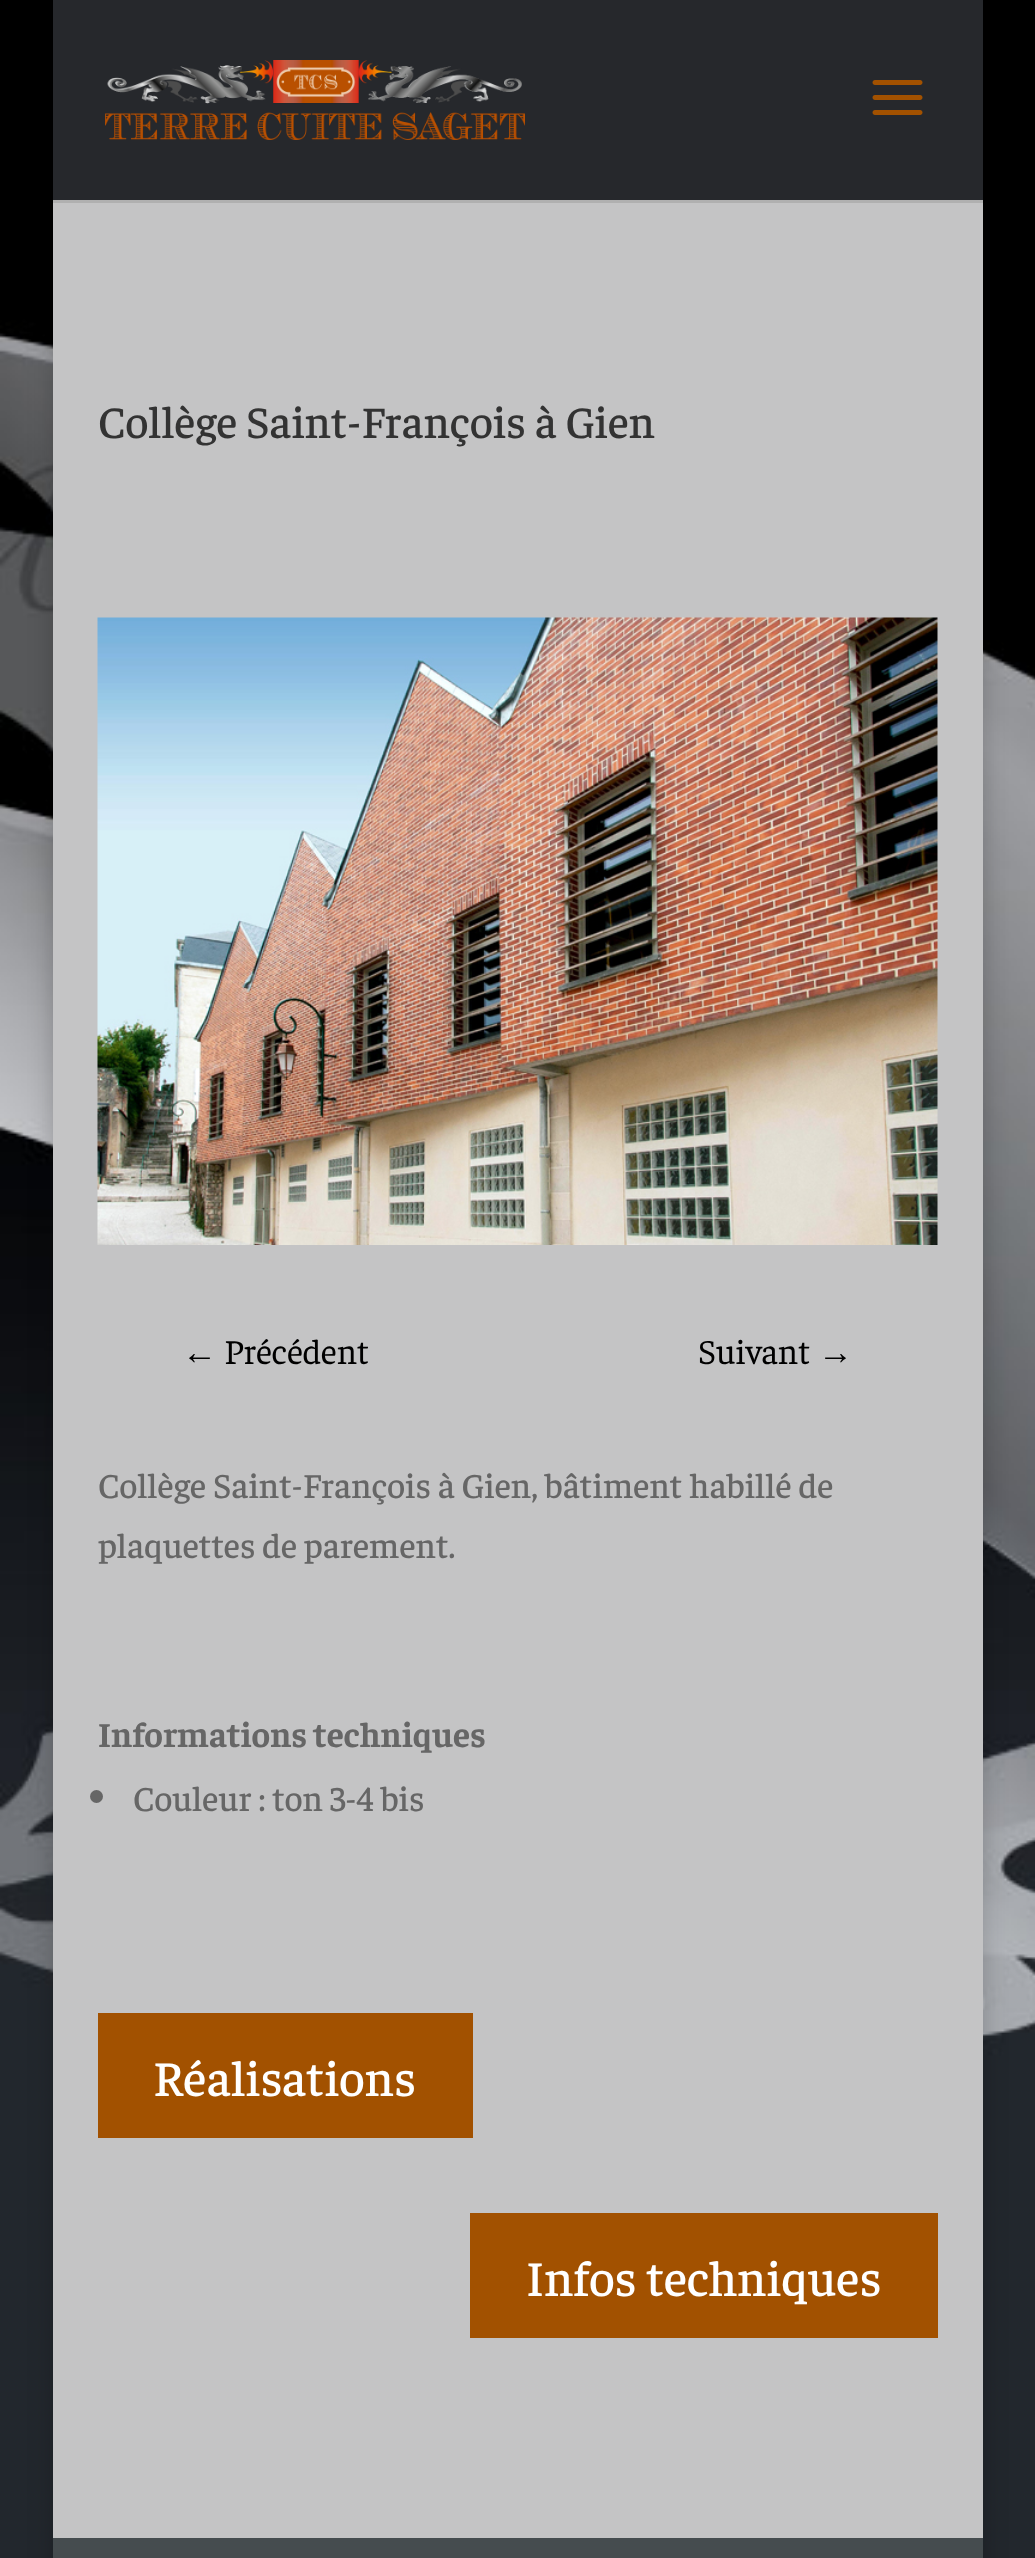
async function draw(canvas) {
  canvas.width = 1035
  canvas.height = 2558
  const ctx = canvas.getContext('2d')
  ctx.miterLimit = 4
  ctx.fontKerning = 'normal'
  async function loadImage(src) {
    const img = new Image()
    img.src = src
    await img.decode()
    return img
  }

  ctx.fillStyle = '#fff'
  ctx.fillRect(0, 0, 1035, 2558)
  ctx.drawImage(await loadImage('image0.png'), 0, 0, 1035, 2558)
  ctx.fillStyle = '#00000033'
  ctx.filter = 'blur(12.5px)'
  ctx.beginPath()
  ctx.rect(53, 0, 930, 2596)
  ctx.fill()
  ctx.filter = 'none'
  ctx.fillStyle = '#c4c4c5'
  ctx.fillRect(53, 200, 930, 2338)
  ctx.fillStyle = '#0000001a'
  ctx.beginPath()
  ctx.moveTo(53, 200)
  ctx.lineTo(53, 203)
  ctx.lineTo(983, 203)
  ctx.lineTo(983, 3)
  ctx.lineTo(982, 3)
  ctx.lineTo(982, 200)
  ctx.closePath()
  ctx.fill()
  ctx.fillStyle = '#26282c'
  ctx.fillRect(53, 0, 930, 200)
  ctx.drawImage(await loadImage('image1.png'), 105, 60, 420, 80)
  ctx.drawImage(await loadImage('image2.png'), 872, 80, 51, 35)
  ctx.fillStyle = '#454c4f'
  ctx.fillRect(53, 2538, 930, 20)
  ctx.font = '300 45px Faustina'
  ctx.fillStyle = '#333'
  ctx.fillText('Collège Saint-François à Gien', 98, 438)
  ctx.drawImage(await loadImage('image3.png'), 97, 617, 841, 628)
  ctx.font = '35px Liberation Serif'
  ctx.fillStyle = '#000'
  ctx.fillText('←', 182, 1364)
  ctx.font = '300 35px "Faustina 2"'
  ctx.fillText('Précédent', 224, 1364)
  ctx.fillText('Suivant', 698, 1364)
  ctx.font = '35px Liberation Serif'
  ctx.fillText('→', 818, 1364)
  ctx.font = '300 35px Faustina'
  ctx.fillStyle = '#666'
  ctx.fillText('Collège Saint-François à Gien, bâtiment habillé de', 98, 1498)
  ctx.fillText('plaquettes de parement.', 98, 1558)
  ctx.font = '300 35px "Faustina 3"'
  ctx.fillText('Informations techniques', 98, 1747)
  ctx.beginPath()
  ctx.arc(96.5, 1796.5, 6.5, 0, 2 * Math.PI)
  ctx.fill()
  ctx.font = '300 35px Faustina'
  ctx.fillText('Couleur : ton 3-4 bis', 133, 1811)
  ctx.fillStyle = '#a25100'
  ctx.fillRect(98, 2013, 375, 125)
  ctx.font = '300 50px Faustina'
  ctx.fillStyle = '#fff'
  ctx.fillText('Réalisations', 153, 2096)
  ctx.fillStyle = '#a25100'
  ctx.fillRect(470, 2213, 468, 125)
  ctx.fillStyle = '#fff'
  ctx.fillText('Infos techniques', 526, 2296)
}

draw(document.querySelector('canvas'))
